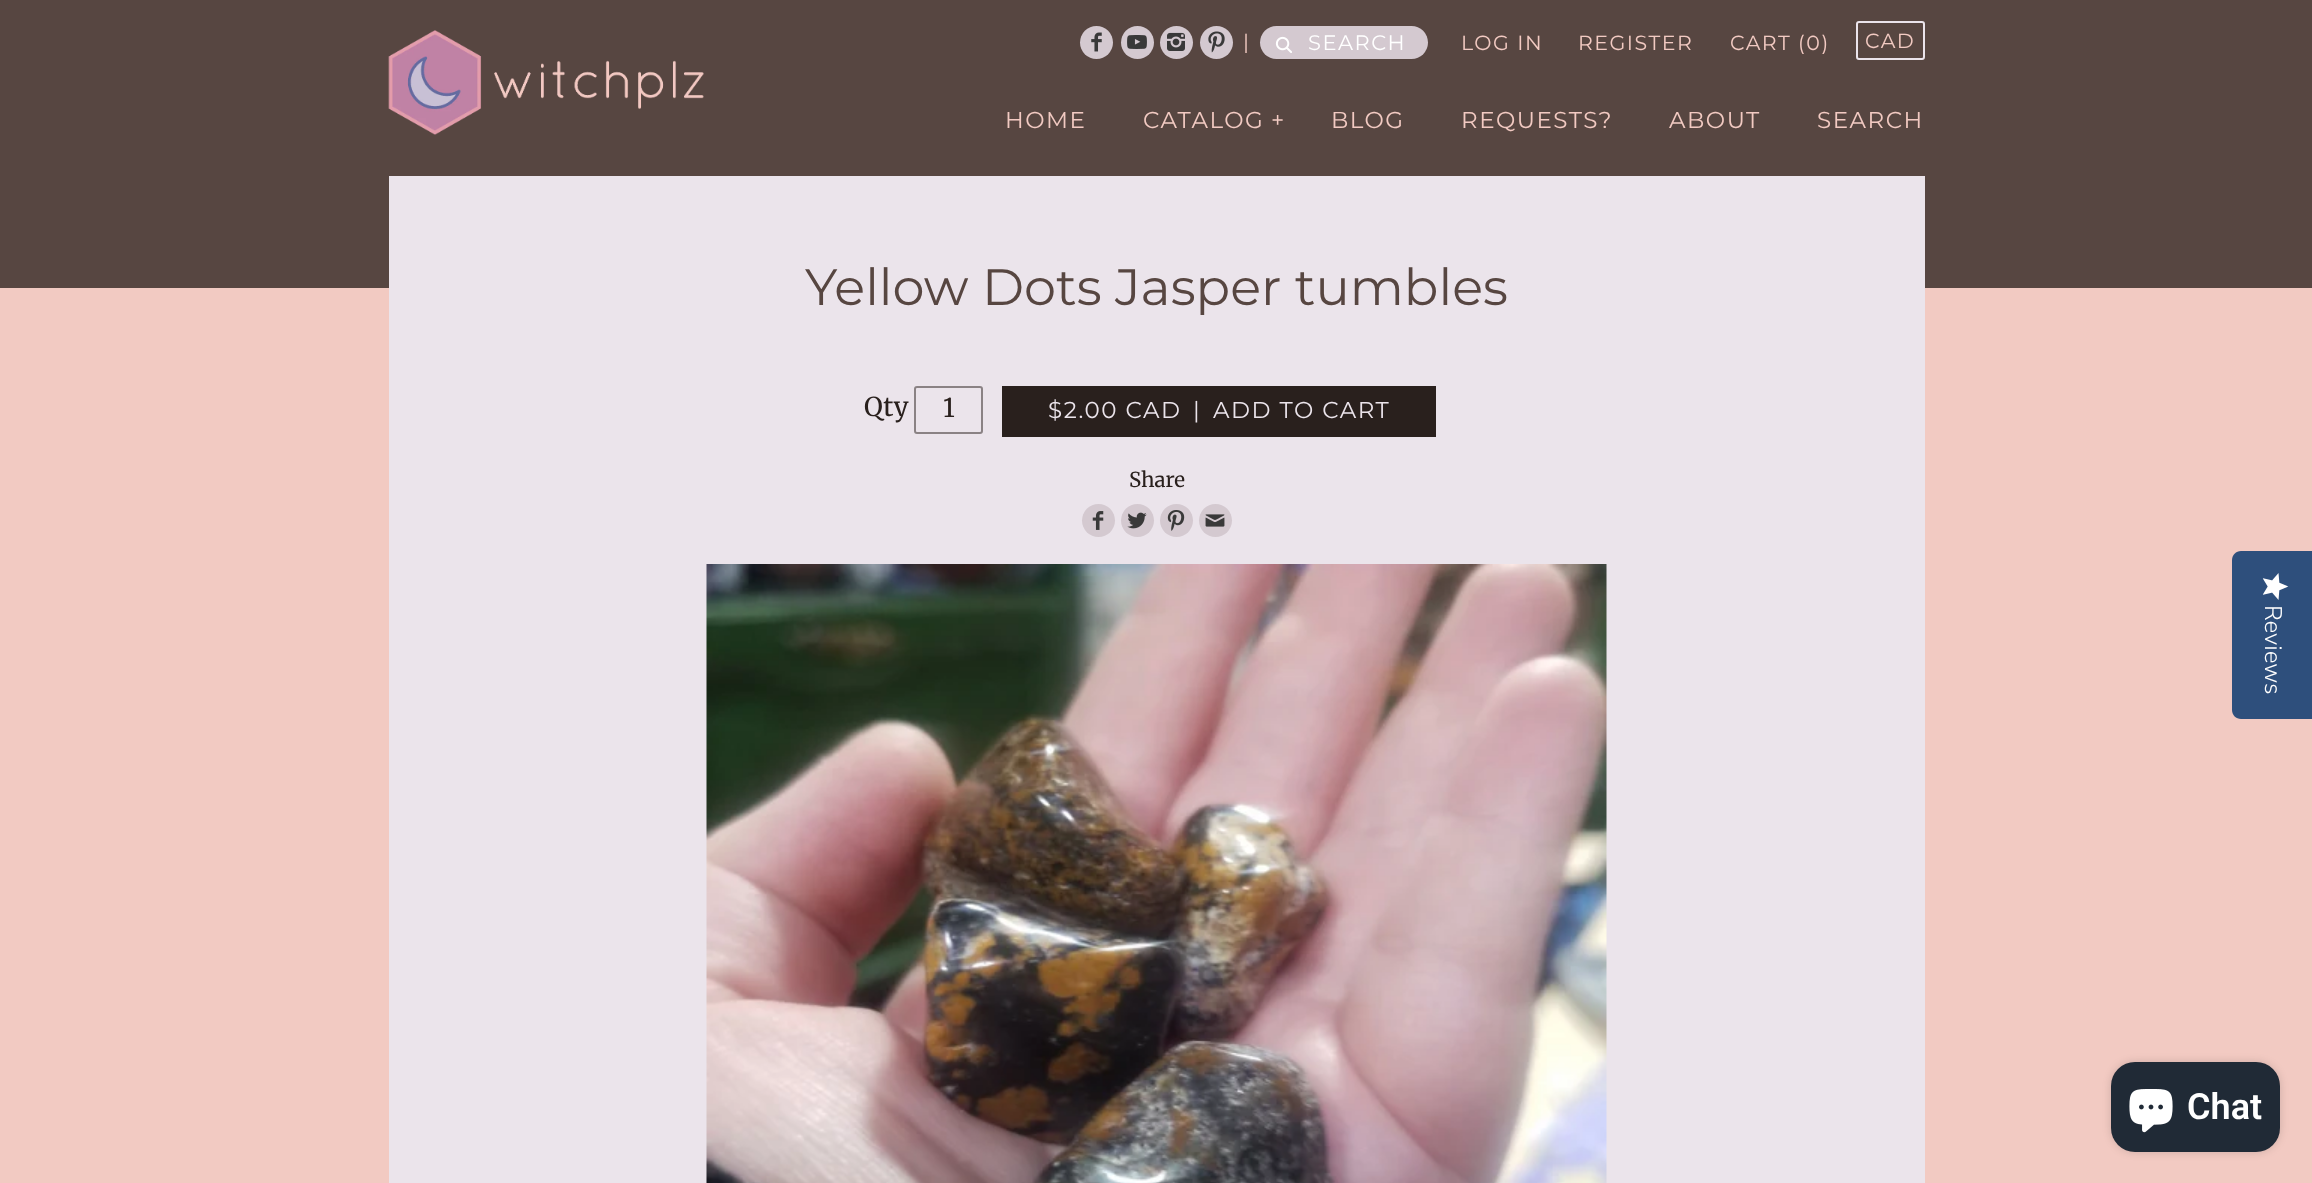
async function draw(canvas) {
  canvas.width = 2312
  canvas.height = 1183
  const ctx = canvas.getContext('2d')
  ctx.miterLimit = 4
  ctx.fontKerning = 'normal'
  async function loadImage(src) {
    const img = new Image()
    img.src = src
    await img.decode()
    return img
  }

  ctx.fillStyle = '#f2cac2'
  ctx.fillRect(0, 0, 2312, 1183)
  ctx.fillStyle = '#574641'
  ctx.fillRect(0, 0, 2312, 288)
  ctx.drawImage(await loadImage('image0.png'), 388, 30, 316, 105)
  ctx.fillStyle = '#d4c9d0'
  ctx.beginPath()
  ctx.arc(1096.5, 42.5, 16.5, 0, 2 * Math.PI)
  ctx.fill()
  ctx.drawImage(await loadImage('image1.png'), 1091, 32, 11, 20)
  ctx.beginPath()
  ctx.arc(1137.5, 42.5, 16.5, 0, 2 * Math.PI)
  ctx.fill()
  ctx.drawImage(await loadImage('image2.png'), 1127, 35, 20, 14)
  ctx.beginPath()
  ctx.arc(1176.5, 42.5, 16.5, 0, 2 * Math.PI)
  ctx.fill()
  ctx.drawImage(await loadImage('image3.png'), 1167, 32, 18, 19)
  ctx.beginPath()
  ctx.arc(1216.5, 42.5, 16.5, 0, 2 * Math.PI)
  ctx.fill()
  ctx.drawImage(await loadImage('image4.png'), 1208, 31, 17, 22)
  ctx.letterSpacing = '1.5px'
  ctx.font = '20.5px Montserrat'
  ctx.fillStyle = '#f2cac2'
  ctx.fillText('|', 1243, 49)
  ctx.fillStyle = '#d4c9d0'
  ctx.beginPath()
  ctx.roundRect(1260, 26, 168, 33, 16.5)
  ctx.fill()
  ctx.drawImage(await loadImage('image5.png'), 1275, 36, 17, 17)
  ctx.font = '21px Montserrat'
  ctx.fillStyle = '#fff'
  ctx.fillText('SEARCH', 1308, 50)
  ctx.font = '20.5px Montserrat'
  ctx.fillStyle = '#f2cac2'
  ctx.fillText('LOG IN', 1461, 50)
  ctx.fillText('REGISTER', 1578, 50)
  ctx.fillText('CART (0)', 1730, 50)
  ctx.beginPath()
  ctx.roundRect(1857, 22, 67, 37, 2)
  ctx.strokeStyle = '#ebe4eb'
  ctx.lineWidth = 2
  ctx.stroke()
  ctx.fillText('CAD', 1865, 48)
  ctx.font = '23px Montserrat'
  ctx.fillText('HOME', 1005, 128)
  ctx.fillText('CATALOG', 1143, 128)
  ctx.fillText('+', 1271, 128)
  ctx.fillText('BLOG', 1331, 128)
  ctx.fillText('REQUESTS?', 1461, 128)
  ctx.fillText('ABOUT', 1669, 128)
  ctx.fillText('SEARCH', 1817, 128)
  ctx.fillStyle = '#ebe4eb'
  ctx.fillRect(389, 176, 1536, 1007)
  ctx.letterSpacing = '0px'
  ctx.font = '51px Montserrat'
  ctx.fillStyle = '#574641'
  ctx.fillText('Yellow Dots Jasper tumbles', 805, 305)
  ctx.font = '26px Merriweather'
  ctx.fillStyle = '#29201d'
  ctx.fillText('Qty', 864, 416)
  ctx.beginPath()
  ctx.roundRect(915, 387, 67, 46, 2)
  ctx.strokeStyle = '#8a8284'
  ctx.stroke()
  ctx.fillText('1', 943, 417)
  ctx.fillRect(1002, 386, 434, 51)
  ctx.letterSpacing = '1.5px'
  ctx.font = '23px Montserrat'
  ctx.fillStyle = '#ebe4eb'
  ctx.fillText('$2.00 CAD', 1048, 418)
  ctx.fillText('|', 1193, 418)
  ctx.fillText('ADD TO CART', 1213, 418)
  ctx.letterSpacing = '0px'
  ctx.font = '20.5px Merriweather'
  ctx.fillStyle = '#29201d'
  ctx.fillText('Share', 1129, 487)
  ctx.fillStyle = '#d4c9d0'
  ctx.beginPath()
  ctx.arc(1098.5, 520.5, 16.5, 0, 2 * Math.PI)
  ctx.fill()
  ctx.drawImage(await loadImage('image6.png'), 1092, 511, 12, 19)
  ctx.beginPath()
  ctx.arc(1137.5, 520.5, 16.5, 0, 2 * Math.PI)
  ctx.fill()
  ctx.drawImage(await loadImage('image7.png'), 1127, 512, 20, 17)
  ctx.beginPath()
  ctx.arc(1176.5, 520.5, 16.5, 0, 2 * Math.PI)
  ctx.fill()
  ctx.drawImage(await loadImage('image8.png'), 1167, 510, 18, 21)
  ctx.beginPath()
  ctx.arc(1215.5, 520.5, 16.5, 0, 2 * Math.PI)
  ctx.fill()
  ctx.drawImage(await loadImage('image9.png'), 1205, 514, 20, 13)
  ctx.drawImage(await loadImage('image10.png'), 706, 564, 901, 619)
  ctx.fillStyle = '#2e4f7c'
  ctx.beginPath()
  ctx.moveTo(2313, 551)
  ctx.lineTo(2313, 719)
  ctx.lineTo(2241, 719)
  ctx.bezierCurveTo(2236, 719, 2232, 715, 2232, 710)
  ctx.lineTo(2232, 560)
  ctx.bezierCurveTo(2232, 555, 2236, 551, 2241, 551)
  ctx.closePath()
  ctx.fill()
  ctx.drawImage(await loadImage('image11.png'), 2262, 573, 27, 27)
  ctx.font = '300 24px Nunito Sans'
  ctx.fillStyle = '#fff'
  ctx.save()
  ctx.translate(2265, 605)
  ctx.rotate(90 * Math.PI / 180)
  ctx.fillText('Reviews', 0, 0)
  ctx.restore()
  ctx.fillStyle = '#00000026'
  ctx.filter = 'blur(4px)'
  ctx.beginPath()
  ctx.roundRect(2111, 1062, 169, 90, 24)
  ctx.fill()
  ctx.filter = 'none'
  ctx.fillStyle = '#202a36'
  ctx.beginPath()
  ctx.roundRect(2111, 1062, 169, 90, 24)
  ctx.fill()
  ctx.drawImage(await loadImage('image12.png'), 2129, 1089, 44, 44)
  ctx.font = '600 36px Roboto'
  ctx.fillStyle = '#fff'
  ctx.fillText('Chat', 2187, 1119)
}

draw(document.querySelector('canvas'))
